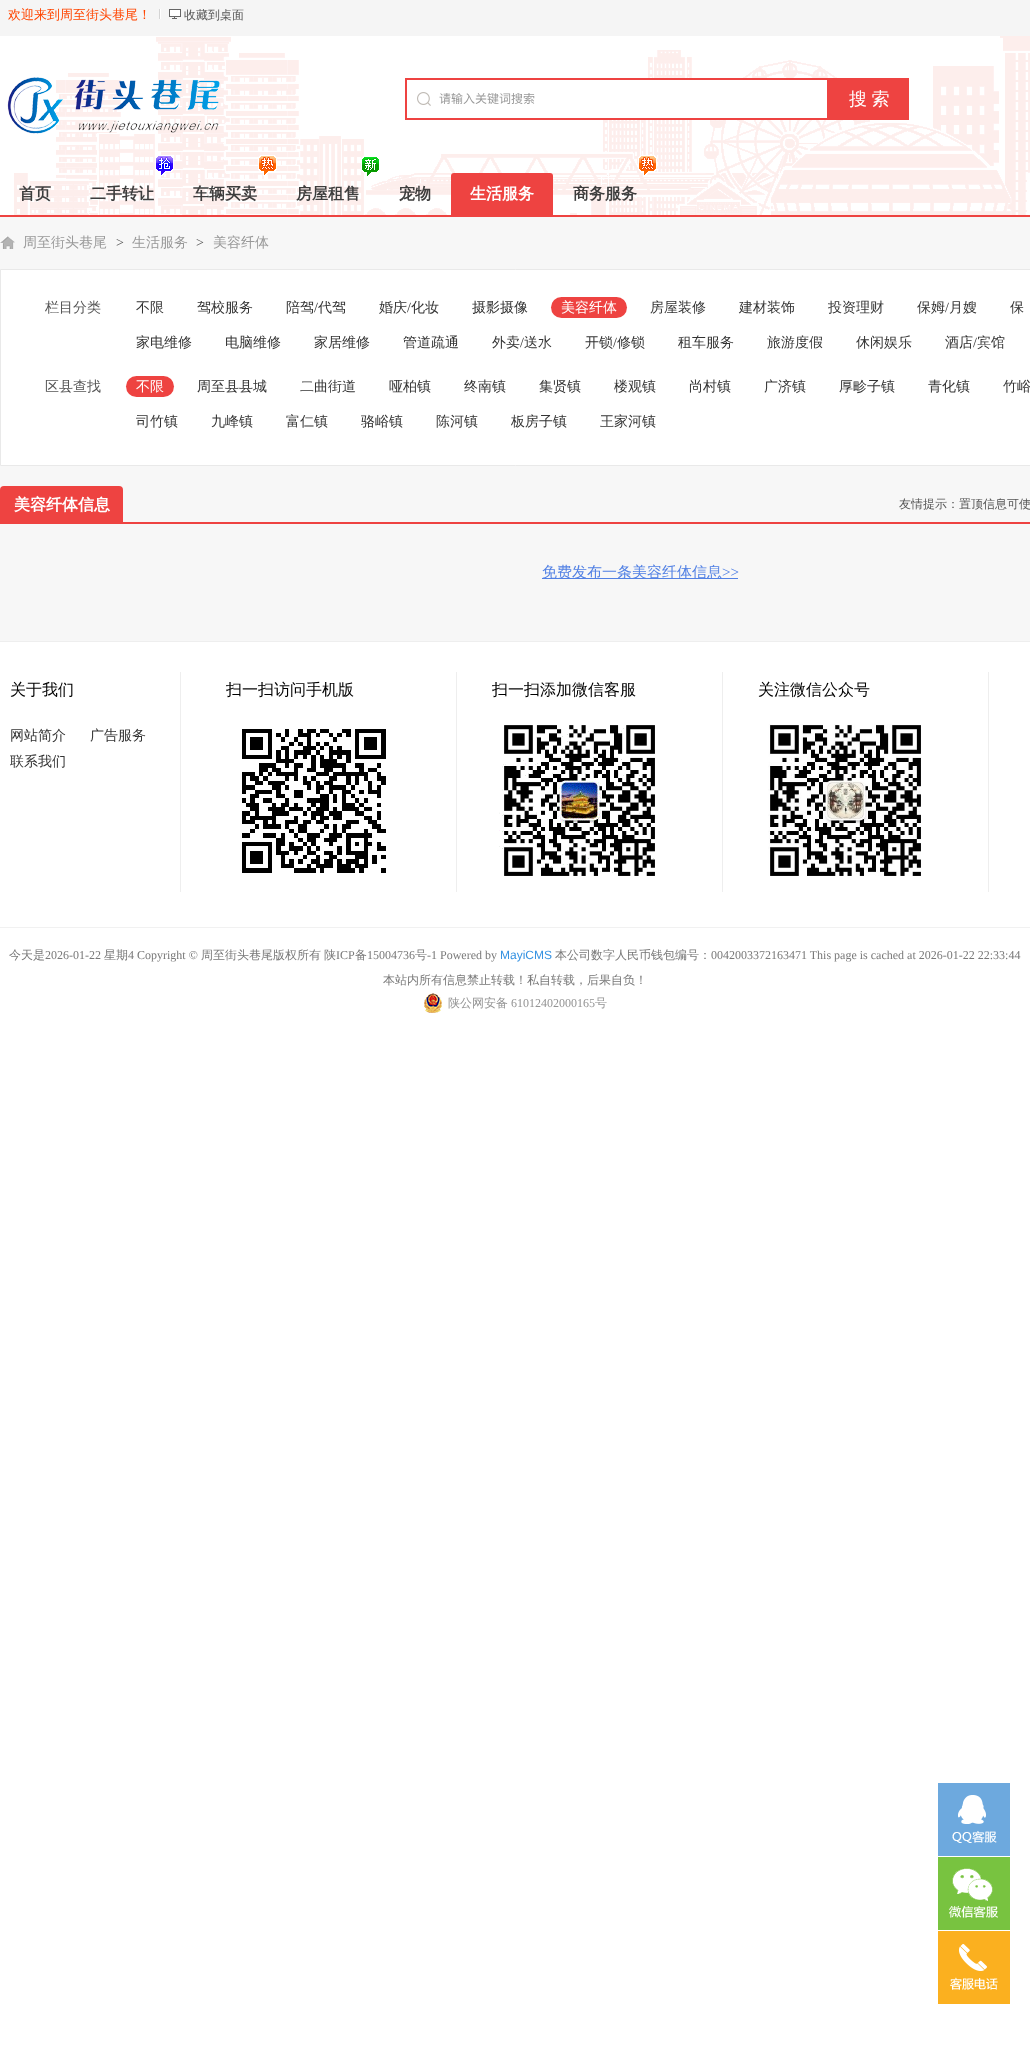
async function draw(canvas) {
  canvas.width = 1030
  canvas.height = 2045
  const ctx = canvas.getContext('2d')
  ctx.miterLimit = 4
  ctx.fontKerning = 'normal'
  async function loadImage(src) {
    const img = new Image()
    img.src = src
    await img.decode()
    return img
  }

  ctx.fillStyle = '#fff'
  ctx.fillRect(0, 0, 1030, 2045)
  ctx.drawImage(await loadImage('image0.png'), 14, 36, 1016, 179)
  ctx.fillStyle = '#f5f5f5'
  ctx.fillRect(0, 0, 1030, 36)
  ctx.font = '500 13px WenQuanYi Zen Hei'
  ctx.fillStyle = '#ff4500'
  ctx.fillText('欢迎来到周至街头巷尾！', 8, 19)
  ctx.fillStyle = '#fff'
  ctx.fillRect(160, 9, 1, 10)
  ctx.fillStyle = '#d4d4d4'
  ctx.fillRect(159, 9, 1, 10)
  ctx.drawImage(await loadImage('image1.png'), 169, 9, 12, 10)
  ctx.font = '500 12px WenQuanYi Zen Hei'
  ctx.fillStyle = '#555'
  ctx.fillText('收藏到桌面', 184, 19)
  ctx.drawImage(await loadImage('image2.png'), 7, 77, 213, 57)
  ctx.fillStyle = '#fff'
  ctx.fillRect(603, 80, 224, 38)
  ctx.drawImage(await loadImage('image3.png'), 417, 92, 14, 14)
  ctx.strokeStyle = '#ee4341'
  ctx.lineWidth = 2
  ctx.strokeRect(406, 79, 422, 40)
  ctx.font = '12px Noto Sans CJK SC'
  ctx.fillStyle = '#999'
  ctx.fillText('请输入关键词搜索', 439, 103)
  ctx.fillStyle = '#ee4341'
  ctx.fillRect(829, 78, 80, 42)
  ctx.wordSpacing = '-1px'
  ctx.font = '500 18px WenQuanYi Zen Hei'
  ctx.fillStyle = '#fff'
  ctx.fillText('搜 索', 849, 105)
  ctx.fillStyle = '#ee4341'
  ctx.fillRect(0, 215, 1030, 2)
  ctx.wordSpacing = '0px'
  ctx.font = 'bold 16px WenQuanYi Zen Hei'
  ctx.fillStyle = '#3d3d3d'
  ctx.fillText('首页', 19, 199)
  ctx.drawImage(await loadImage('image4.png'), 156, 155, 18, 21)
  ctx.fillText('二手转让', 90, 199)
  ctx.drawImage(await loadImage('image5.png'), 258, 155, 19, 21)
  ctx.fillText('车辆买卖', 193, 199)
  ctx.drawImage(await loadImage('image6.png'), 361, 156, 18, 20)
  ctx.fillText('房屋租售', 296, 199)
  ctx.fillText('宠物', 399, 199)
  ctx.fillStyle = '#ee4341'
  ctx.beginPath()
  ctx.roundRect(451, 173, 102, 42, [3, 3, 0, 0])
  ctx.fill()
  ctx.fillStyle = '#fff'
  ctx.fillText('生活服务', 470, 199)
  ctx.drawImage(await loadImage('image7.png'), 638, 155, 19, 20)
  ctx.fillStyle = '#3d3d3d'
  ctx.fillText('商务服务', 573, 199)
  ctx.fillStyle = '#f7f7f7'
  ctx.fillRect(0, 217, 1030, 424)
  ctx.drawImage(await loadImage('image8.png'), 0, 236, 15, 13)
  ctx.font = '500 14px WenQuanYi Zen Hei'
  ctx.fillStyle = '#999'
  ctx.fillText('周至街头巷尾', 23, 247)
  ctx.font = '14px Liberation Serif'
  ctx.fillStyle = '#555'
  ctx.fillText('>', 116, 247)
  ctx.font = '500 14px WenQuanYi Zen Hei'
  ctx.fillStyle = '#999'
  ctx.fillText('生活服务', 132, 247)
  ctx.font = '14px Liberation Serif'
  ctx.fillStyle = '#555'
  ctx.fillText('>', 196, 247)
  ctx.font = '500 14px WenQuanYi Zen Hei'
  ctx.fillStyle = '#999'
  ctx.fillText('美容纤体', 213, 247)
  ctx.fillStyle = '#fff'
  ctx.beginPath()
  ctx.rect(0.5, 269.5, 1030, 196)
  ctx.fill()
  ctx.strokeStyle = '#e9e9e9'
  ctx.lineWidth = 1
  ctx.stroke()
  ctx.fillStyle = '#555'
  ctx.fillText('栏目分类', 45, 312)
  ctx.fillStyle = '#333'
  ctx.fillText('不限', 136, 312)
  ctx.fillText('驾校服务', 197, 312)
  ctx.fillText('陪驾', 286, 312)
  ctx.font = '14px Liberation Serif'
  ctx.fillText('/', 314, 312)
  ctx.font = '500 14px WenQuanYi Zen Hei'
  ctx.fillText('代驾', 318, 312)
  ctx.fillText('婚庆', 379, 312)
  ctx.font = '14px Liberation Serif'
  ctx.fillText('/', 407, 312)
  ctx.font = '500 14px WenQuanYi Zen Hei'
  ctx.fillText('化妆', 411, 312)
  ctx.fillText('摄影摄像', 472, 312)
  ctx.fillStyle = '#ee4341'
  ctx.beginPath()
  ctx.roundRect(551, 297, 76, 21, 10.5)
  ctx.fill()
  ctx.fillStyle = '#fff'
  ctx.fillText('美容纤体', 561, 312)
  ctx.fillStyle = '#333'
  ctx.fillText('房屋装修', 650, 312)
  ctx.fillText('建材装饰', 739, 312)
  ctx.fillText('投资理财', 828, 312)
  ctx.fillText('保姆', 917, 312)
  ctx.font = '14px Liberation Serif'
  ctx.fillText('/', 945, 312)
  ctx.font = '500 14px WenQuanYi Zen Hei'
  ctx.fillText('月嫂', 949, 312)
  ctx.fillText('保', 1010, 312)
  ctx.fillText('家电维修', 136, 347)
  ctx.fillText('电脑维修', 225, 347)
  ctx.fillText('家居维修', 314, 347)
  ctx.fillText('管道疏通', 403, 347)
  ctx.fillText('外卖', 492, 347)
  ctx.font = '14px Liberation Serif'
  ctx.fillText('/', 520, 347)
  ctx.font = '500 14px WenQuanYi Zen Hei'
  ctx.fillText('送水', 524, 347)
  ctx.fillText('开锁', 585, 347)
  ctx.font = '14px Liberation Serif'
  ctx.fillText('/', 613, 347)
  ctx.font = '500 14px WenQuanYi Zen Hei'
  ctx.fillText('修锁', 617, 347)
  ctx.fillText('租车服务', 678, 347)
  ctx.fillText('旅游度假', 767, 347)
  ctx.fillText('休闲娱乐', 856, 347)
  ctx.fillText('酒店', 945, 347)
  ctx.font = '14px Liberation Serif'
  ctx.fillText('/', 973, 347)
  ctx.font = '500 14px WenQuanYi Zen Hei'
  ctx.fillText('宾馆', 977, 347)
  ctx.fillStyle = '#555'
  ctx.fillText('区县查找', 45, 391)
  ctx.fillStyle = '#ee4341'
  ctx.beginPath()
  ctx.roundRect(126, 376, 48, 21, 10.5)
  ctx.fill()
  ctx.fillStyle = '#fff'
  ctx.fillText('不限', 136, 391)
  ctx.fillStyle = '#333'
  ctx.fillText('周至县县城', 197, 391)
  ctx.fillText('二曲街道', 300, 391)
  ctx.fillText('哑柏镇', 389, 391)
  ctx.fillText('终南镇', 464, 391)
  ctx.fillText('集贤镇', 539, 391)
  ctx.fillText('楼观镇', 614, 391)
  ctx.fillText('尚村镇', 689, 391)
  ctx.fillText('广济镇', 764, 391)
  ctx.fillText('厚畛子镇', 839, 391)
  ctx.fillText('青化镇', 928, 391)
  ctx.fillText('竹峪', 1003, 391)
  ctx.fillText('司竹镇', 136, 426)
  ctx.fillText('九峰镇', 211, 426)
  ctx.fillText('富仁镇', 286, 426)
  ctx.fillText('骆峪镇', 361, 426)
  ctx.fillText('陈河镇', 436, 426)
  ctx.fillText('板房子镇', 511, 426)
  ctx.fillText('王家河镇', 600, 426)
  ctx.fillStyle = '#ee4341'
  ctx.fillRect(123, 522, 907, 2)
  ctx.beginPath()
  ctx.roundRect(0, 486, 123, 38, [4, 4, 0, 0])
  ctx.fill()
  ctx.font = 'bold 16px WenQuanYi Zen Hei'
  ctx.fillStyle = '#fff'
  ctx.fillText('美容纤体信息', 14, 510)
  ctx.font = '500 12px WenQuanYi Zen Hei'
  ctx.fillStyle = '#555'
  ctx.fillText('友情提示：置顶信息可使', 899, 508)
  ctx.fillStyle = '#5281e4'
  ctx.fillRect(542, 578, 196, 1)
  ctx.font = '500 15px WenQuanYi Zen Hei'
  ctx.fillText('免费发布一条美容纤体信息', 542, 577)
  ctx.font = '15px Liberation Serif'
  ctx.fillText('>>', 722, 577)
  ctx.fillStyle = '#eee'
  ctx.fillRect(0, 641, 1030, 1)
  ctx.fillRect(180, 672, 1, 220)
  ctx.font = '500 16px WenQuanYi Zen Hei'
  ctx.fillStyle = '#000'
  ctx.fillText('关于我们', 10, 695)
  ctx.font = '500 14px WenQuanYi Zen Hei'
  ctx.fillStyle = '#333'
  ctx.fillText('网站简介', 10, 740)
  ctx.fillText('广告服务', 90, 740)
  ctx.fillText('联系我们', 10, 766)
  ctx.fillStyle = '#eee'
  ctx.fillRect(456, 672, 1, 220)
  ctx.font = '500 16px WenQuanYi Zen Hei'
  ctx.fillStyle = '#000'
  ctx.fillText('扫一扫访问手机版', 226, 695)
  ctx.drawImage(await loadImage('image9.png'), 242, 729, 144, 144)
  ctx.fillStyle = '#eee'
  ctx.fillRect(722, 672, 1, 220)
  ctx.fillStyle = '#000'
  ctx.fillText('扫一扫添加微信客服', 492, 695)
  ctx.drawImage(await loadImage('image10.png'), 499, 725, 156, 151)
  ctx.fillStyle = '#eee'
  ctx.fillRect(988, 672, 1, 220)
  ctx.fillStyle = '#000'
  ctx.fillText('关注微信公众号', 758, 695)
  ctx.drawImage(await loadImage('image11.png'), 768, 724, 153, 152)
  ctx.fillStyle = '#f1f1f1'
  ctx.fillRect(0, 927, 1030, 1)
  ctx.font = '500 12px WenQuanYi Zen Hei'
  ctx.fillStyle = '#787878'
  ctx.fillText('今天是', 9, 959)
  ctx.font = '12px Liberation Serif'
  ctx.fillText('2026-01-22', 45, 959)
  ctx.font = '500 12px WenQuanYi Zen Hei'
  ctx.fillText('星期', 104, 959)
  ctx.font = '12px Liberation Serif'
  ctx.fillText('4 Copyright ©', 128, 959)
  ctx.font = '500 12px WenQuanYi Zen Hei'
  ctx.fillText('周至街头巷尾版权所有', 201, 959)
  ctx.fillText('陕', 324, 959)
  ctx.font = '12px Liberation Serif'
  ctx.fillText('ICP', 336, 959)
  ctx.font = '500 12px WenQuanYi Zen Hei'
  ctx.fillText('备', 355, 959)
  ctx.font = '12px Liberation Serif'
  ctx.fillText('15004736', 367, 959)
  ctx.font = '500 12px WenQuanYi Zen Hei'
  ctx.fillText('号', 415, 959)
  ctx.font = '12px Liberation Serif'
  ctx.fillText('-1 Powered by', 427, 959)
  ctx.font = '12px Liberation Sans'
  ctx.fillStyle = '#3592e2'
  ctx.fillText('MayiCMS', 500, 959)
  ctx.font = '500 12px WenQuanYi Zen Hei'
  ctx.fillStyle = '#787878'
  ctx.fillText('本公司数字人民币钱包编号：', 555, 959)
  ctx.font = '12px Liberation Serif'
  ctx.fillText('0042003372163471 This page is cached at 2026-01-22 22:33:44', 711, 959)
  ctx.font = '500 12px WenQuanYi Zen Hei'
  ctx.fillText('本站内所有信息禁止转载！私自转载，后果自负！', 383, 984)
  ctx.drawImage(await loadImage('image12.png'), 424, 993, 18, 20)
  ctx.fillStyle = '#939393'
  ctx.fillText('陕公网安备', 448, 1007)
  ctx.font = '12px Liberation Serif'
  ctx.fillText('61012402000165', 511, 1007)
  ctx.font = '500 12px WenQuanYi Zen Hei'
  ctx.fillText('号', 595, 1007)
  ctx.fillStyle = '#6da9de'
  ctx.fillRect(938, 1783, 72, 73)
  ctx.drawImage(await loadImage('image13.png'), 952, 1795, 45, 48)
  ctx.fillStyle = '#78c340'
  ctx.fillRect(938, 1857, 72, 73)
  ctx.drawImage(await loadImage('image14.png'), 949, 1868, 49, 50)
  ctx.fillStyle = '#fbb01f'
  ctx.fillRect(938, 1931, 72, 73)
  ctx.drawImage(await loadImage('image15.png'), 950, 1944, 48, 46)
}

draw(document.querySelector('canvas'))
